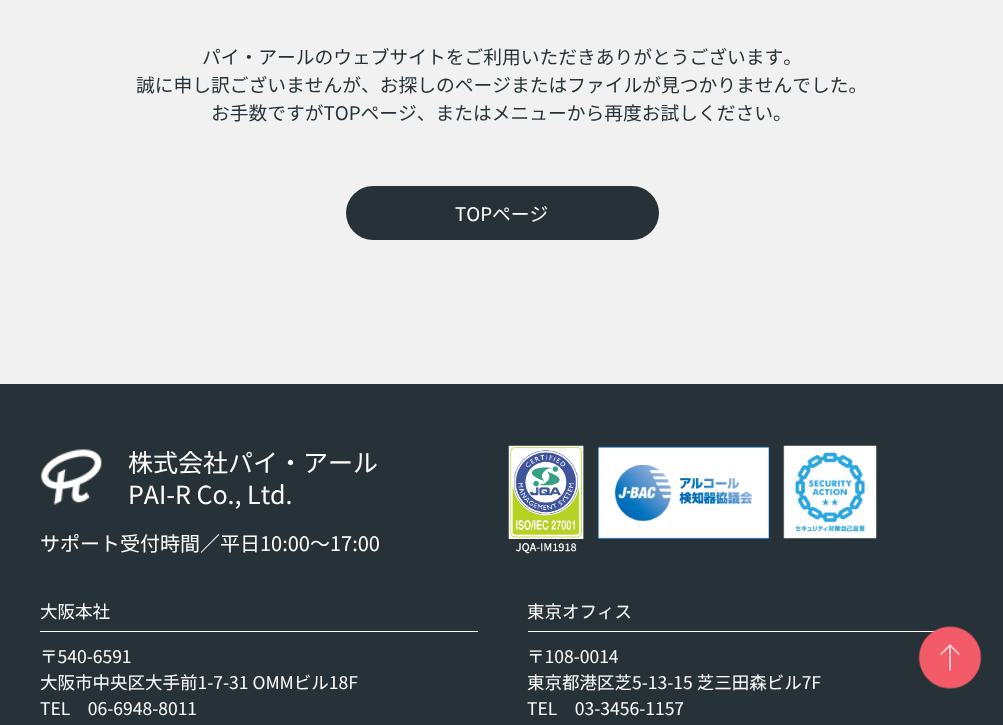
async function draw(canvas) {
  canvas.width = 1003
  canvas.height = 725
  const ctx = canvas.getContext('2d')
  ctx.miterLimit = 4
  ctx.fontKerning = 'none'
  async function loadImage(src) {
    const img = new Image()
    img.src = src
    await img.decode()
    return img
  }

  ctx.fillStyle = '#f1f1f1'
  ctx.fillRect(0, 0, 1003, 725)
  ctx.font = '18.75px Noto Sans JP'
  ctx.fillStyle = '#263238'
  ctx.fillText('パイ・アールのウェブサイトをご利用いただきありがとうございます。', 202, 64)
  ctx.fillText('誠に申し訳ございませんが、お探しのページまたはファイルが見つかりませんでした。', 136, 92)
  ctx.fillText('お手数ですがTOPページ、またはメニューから再度お試しください。', 211, 120)
  ctx.beginPath()
  ctx.roundRect(346, 186, 313, 54, 27)
  ctx.fill()
  ctx.fillStyle = '#fff'
  ctx.fillText('TOPページ', 455, 221)
  ctx.fillStyle = '#263238'
  ctx.fillRect(0, 384, 1003, 341)
  ctx.drawImage(await loadImage('image0.png'), 41, 449, 61, 56)
  ctx.font = '25px Noto Sans JP'
  ctx.fillStyle = '#fff'
  ctx.fillText('株式会社パイ・アール', 128, 472)
  ctx.fillText('PAI-R Co., Ltd.', 128, 504)
  ctx.font = '20px Noto Sans JP'
  ctx.fillText('サポート受付時間／平日10:00～17:00', 40, 551)
  ctx.drawImage(await loadImage('image1.png'), 508, 445, 76, 109)
  ctx.drawImage(await loadImage('image2.png'), 597, 446, 173, 93)
  ctx.drawImage(await loadImage('image3.png'), 783, 445, 94, 94)
  ctx.fillRect(40, 631, 438, 1)
  ctx.font = '17.5px Noto Sans JP'
  ctx.fillText('大阪本社', 40, 618)
  ctx.fillText('〒540-6591', 40, 663)
  ctx.fillText('大阪市中央区大手前1-7-31 OMMビル18F', 40, 689)
  ctx.fillText('TEL　06-6948-8011', 40, 715)
  ctx.fillRect(528, 631, 408, 1)
  ctx.fillText('東京オフィス', 527, 618)
  ctx.fillText('〒108-0014', 527, 663)
  ctx.fillText('東京都港区芝5-13-15 芝三田森ビル7F', 527, 689)
  ctx.fillText('TEL　03-3456-1157', 527, 715)
  ctx.drawImage(await loadImage('image4.png'), 918, 626, 64, 63)
}

draw(document.querySelector('canvas'))
